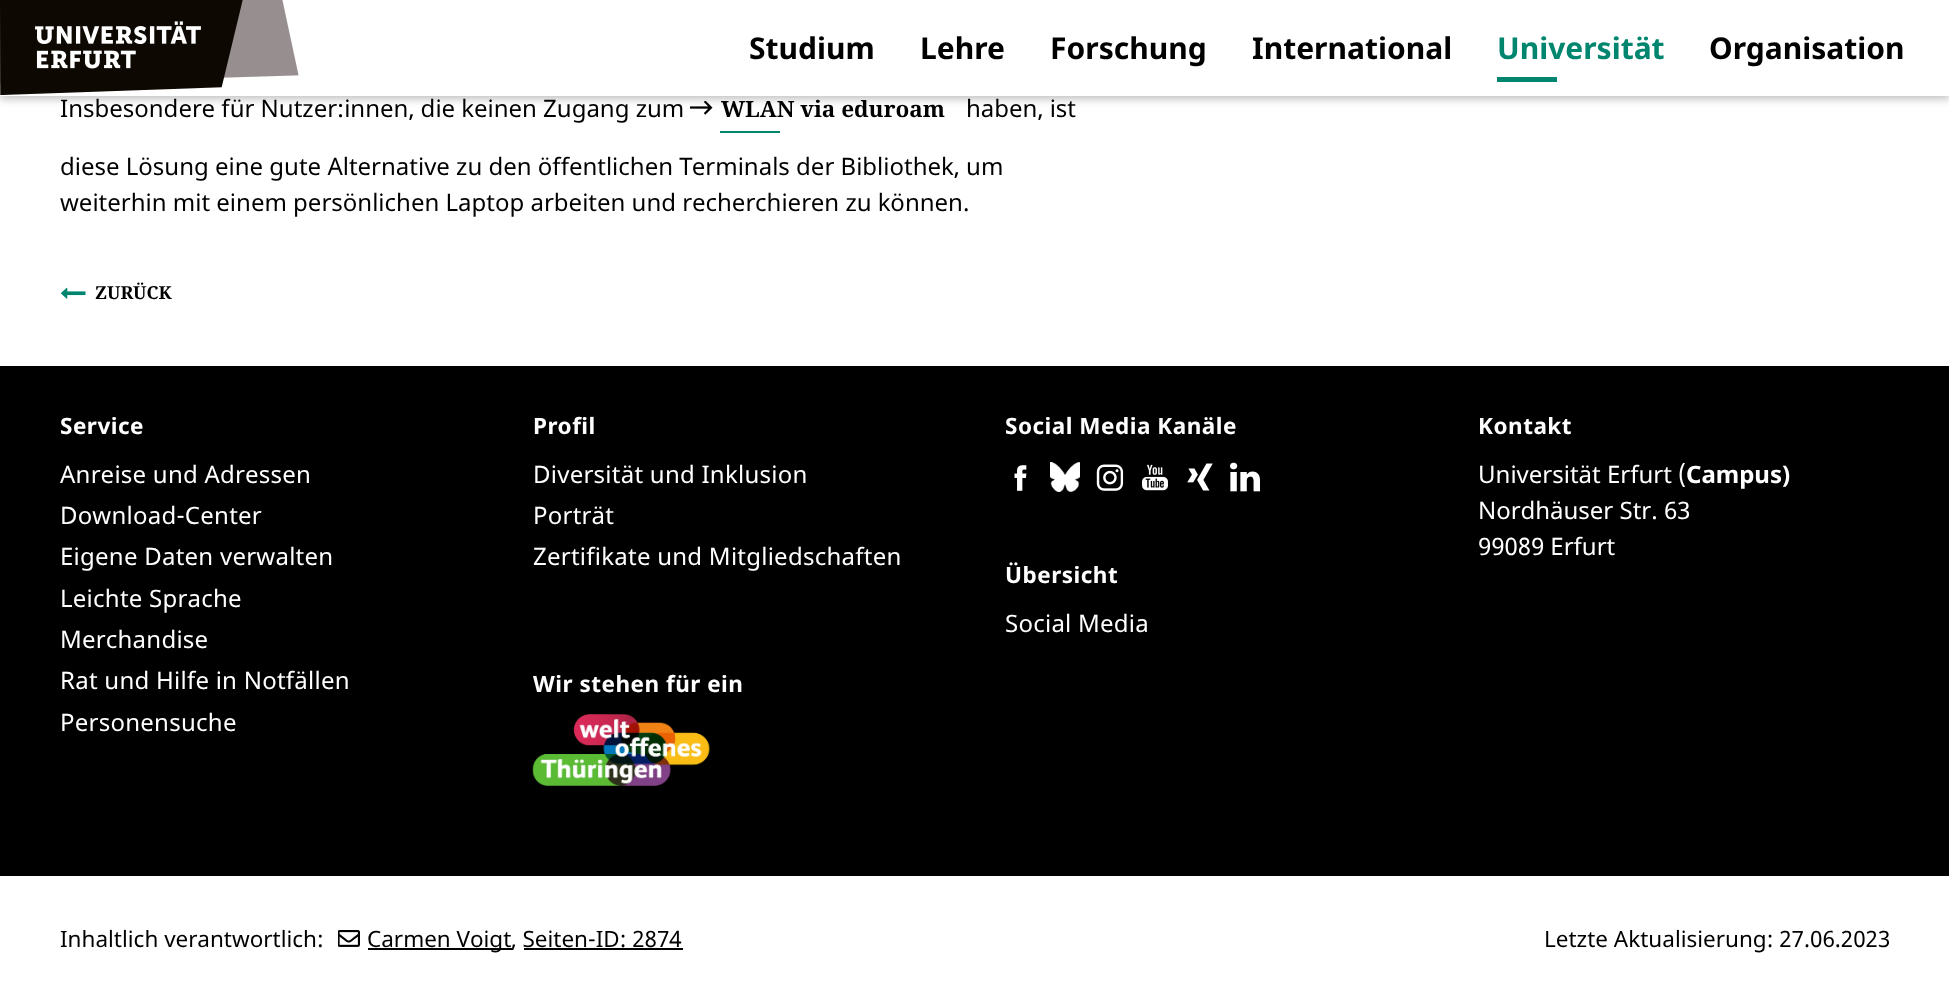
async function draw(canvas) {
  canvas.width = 1949
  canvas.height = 988
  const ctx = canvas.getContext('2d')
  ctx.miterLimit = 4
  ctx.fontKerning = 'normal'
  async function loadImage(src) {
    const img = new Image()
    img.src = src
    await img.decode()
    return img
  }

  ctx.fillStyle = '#fff'
  ctx.fillRect(0, 0, 1949, 988)
  ctx.drawImage(await loadImage('image1.png'), 690, 101, 23, 14)
  ctx.fillStyle = '#00000040'
  ctx.filter = 'blur(4px)'
  ctx.beginPath()
  ctx.rect(0, 3, 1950, 96)
  ctx.fill()
  ctx.filter = 'none'
  ctx.fillStyle = '#fff'
  ctx.fillRect(0, 0, 1949, 96)
  ctx.drawImage(await loadImage('image0.png'), 0, 0, 299, 95)
  ctx.font = 'bold 30px Noto Sans'
  ctx.fillStyle = '#000'
  ctx.fillText('Studium', 749, 59)
  ctx.fillText('Lehre', 920, 59)
  ctx.fillText('Forschung', 1050, 59)
  ctx.fillText('International', 1252, 59)
  ctx.fillStyle = '#00856f'
  ctx.fillText('Universität', 1497, 59)
  ctx.fillRect(1497, 77, 60, 5)
  ctx.fillStyle = '#000'
  ctx.fillText('Organisation', 1709, 59)
  ctx.font = '24px Noto Sans'
  ctx.fillText('Insbesondere für Nutzer:innen, die keinen Zugang zum', 60, 117)
  ctx.font = 'bold 22.5px Noto Serif'
  ctx.fillText('WLAN via eduroam', 721, 117)
  ctx.fillStyle = '#00856f'
  ctx.fillRect(720, 131, 60, 2)
  ctx.font = '24px Noto Sans'
  ctx.fillStyle = '#000'
  ctx.fillText('haben, ist', 966, 117)
  ctx.fillText('diese Lösung eine gute Alternative zu den öffentlichen Terminals der Bibliothek, um', 60, 175)
  ctx.fillText('weiterhin mit einem persönlichen Laptop arbeiten und recherchieren zu können.', 60, 211)
  ctx.drawImage(await loadImage('image2.png'), 61, 287, 25, 12)
  ctx.font = 'bold 18px Noto Serif'
  ctx.fillText('ZURÜCK', 95, 299)
  ctx.fillRect(0, 366, 1949, 510)
  ctx.letterSpacing = '0.5px'
  ctx.font = 'bold 22.5px Noto Sans'
  ctx.fillStyle = '#fff'
  ctx.fillText('Service', 60, 434)
  ctx.letterSpacing = '0.25px'
  ctx.font = '24px Noto Sans'
  ctx.fillText('Anreise und Adressen', 60, 483)
  ctx.fillText('Download-Center', 60, 524)
  ctx.fillText('Eigene Daten verwalten', 60, 565)
  ctx.fillText('Leichte Sprache', 60, 607)
  ctx.fillText('Merchandise', 60, 648)
  ctx.fillText('Rat und Hilfe in Notfällen', 60, 689)
  ctx.fillText('Personensuche', 60, 731)
  ctx.letterSpacing = '0.5px'
  ctx.font = 'bold 22.5px Noto Sans'
  ctx.fillText('Profil', 533, 434)
  ctx.letterSpacing = '0.25px'
  ctx.font = '24px Noto Sans'
  ctx.fillText('Diversität und Inklusion', 533, 483)
  ctx.fillText('Porträt', 533, 524)
  ctx.fillText('Zertifikate und Mitgliedschaften', 533, 565)
  ctx.letterSpacing = '0.5px'
  ctx.font = 'bold 22.5px Noto Sans'
  ctx.fillText('Wir stehen für ein', 533, 692)
  ctx.drawImage(await loadImage('image3.png'), 532, 714, 178, 72)
  ctx.fillText('Social Media Kanäle', 1005, 434)
  ctx.drawImage(await loadImage('image4.png'), 1014, 465, 13, 26)
  ctx.drawImage(await loadImage('image5.png'), 1050, 462, 30, 30)
  ctx.drawImage(await loadImage('image6.png'), 1096, 464, 28, 27)
  ctx.drawImage(await loadImage('image7.png'), 1142, 464, 26, 27)
  ctx.drawImage(await loadImage('image8.png'), 1187, 463, 26, 28)
  ctx.drawImage(await loadImage('image9.png'), 1230, 462, 30, 30)
  ctx.fillText('Übersicht', 1005, 583)
  ctx.letterSpacing = '0.25px'
  ctx.font = '24px Noto Sans'
  ctx.fillText('Social Media', 1005, 632)
  ctx.letterSpacing = '0.5px'
  ctx.font = 'bold 22.5px Noto Sans'
  ctx.fillText('Kontakt', 1478, 434)
  ctx.letterSpacing = '0px'
  ctx.font = '24px Noto Sans'
  ctx.fillText('Universität Erfurt (', 1478, 483)
  ctx.font = 'bold 24px Noto Sans'
  ctx.fillText('Campus)', 1686, 483)
  ctx.font = '24px Noto Sans'
  ctx.fillText('Nordhäuser Str. 63', 1478, 519)
  ctx.fillText('99089 Erfurt', 1478, 555)
  ctx.font = '22.5px Noto Sans'
  ctx.fillStyle = '#000'
  ctx.fillText('Inhaltlich verantwortlich:', 60, 947)
  ctx.drawImage(await loadImage('image10.png'), 338, 930, 22, 17)
  ctx.fillRect(368, 948, 144, 2)
  ctx.fillText('Carmen Voigt', 367, 947)
  ctx.fillText(', Seiten-ID: 2874', 511, 947)
  ctx.fillRect(524, 948, 159, 2)
  ctx.fillText('Letzte Aktualisierung: 27.06.2023', 1544, 947)
}

draw(document.querySelector('canvas'))
